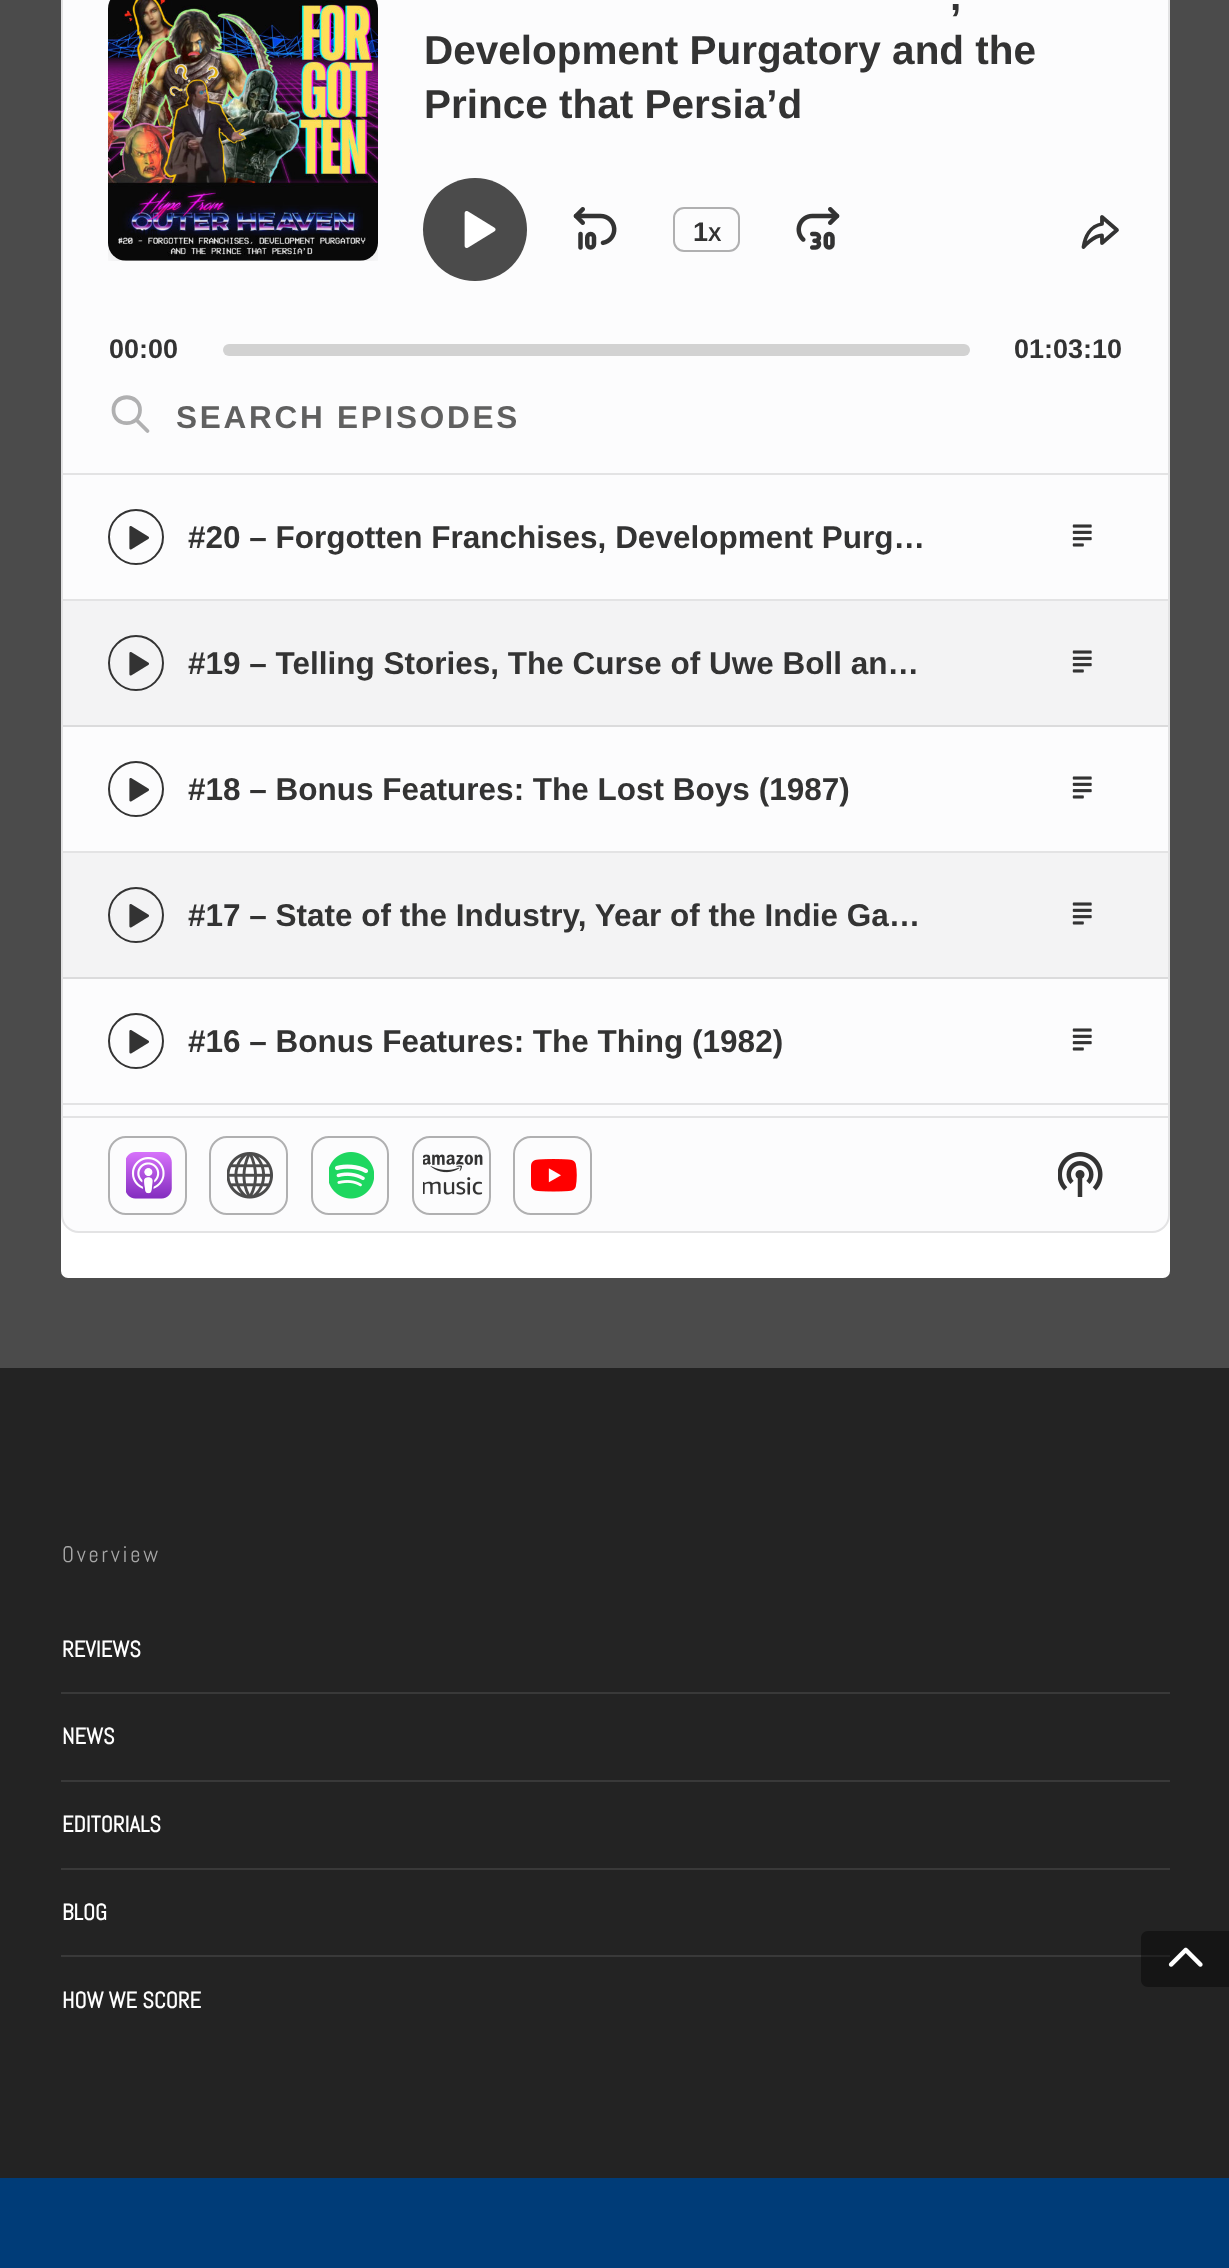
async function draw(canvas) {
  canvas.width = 1229
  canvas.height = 2268
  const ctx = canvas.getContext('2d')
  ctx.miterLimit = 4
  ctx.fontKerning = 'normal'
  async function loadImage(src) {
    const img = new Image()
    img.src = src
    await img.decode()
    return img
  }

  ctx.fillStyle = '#4b4b4b'
  ctx.fillRect(0, 0, 1229, 2268)
  ctx.fillStyle = '#fff'
  ctx.beginPath()
  ctx.roundRect(61, -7, 1109, 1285, 7)
  ctx.fill()
  ctx.fillStyle = '#fcfcfd'
  ctx.beginPath()
  ctx.roundRect(62, -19, 1107, 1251, 17)
  ctx.fill()
  ctx.strokeStyle = '#e3e3e4'
  ctx.lineWidth = 2
  ctx.stroke()
  ctx.save()
  ctx.beginPath()
  ctx.rect(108, 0, 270, 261)
  ctx.clip()
  ctx.fillStyle = '#00000014'
  ctx.filter = 'blur(9px)'
  ctx.beginPath()
  ctx.roundRect(108, -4, 270, 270, 18)
  ctx.fill()
  ctx.filter = 'none'
  ctx.restore()
  ctx.drawImage(await loadImage('image0.png'), 108, 0, 270, 261)
  ctx.font = 'bold 40.5px Liberation Sans'
  ctx.fillStyle = '#333'
  ctx.fillText(',', 950, 10)
  ctx.fillText('Development Purgatory and the', 424, 64)
  ctx.fillText('Prince that Persia’d', 424, 118)
  ctx.fillStyle = '#4b4b4b'
  ctx.beginPath()
  ctx.roundRect(423, 178, 104, 103, 51.5)
  ctx.fill()
  ctx.drawImage(await loadImage('image1.png'), 464, 211, 32, 37)
  ctx.drawImage(await loadImage('image2.png'), 573, 207, 44, 43)
  ctx.beginPath()
  ctx.roundRect(674, 208, 65, 43, 10)
  ctx.strokeStyle = '#b0b0b1'
  ctx.stroke()
  ctx.font = 'bold 27px Liberation Sans'
  ctx.fillStyle = '#333'
  ctx.fillText('1', 693, 241)
  ctx.font = 'bold 20px Liberation Sans'
  ctx.fillText('X', 708, 241)
  ctx.drawImage(await loadImage('image3.png'), 796, 207, 44, 43)
  ctx.beginPath()
  ctx.moveTo(1102, 217)
  ctx.lineTo(1102, 224)
  ctx.bezierCurveTo(1090, 226, 1085, 237, 1083.5, 247)
  ctx.bezierCurveTo(1083.5, 247, 1093.5, 235.5, 1102, 235.5)
  ctx.lineTo(1102, 243)
  ctx.lineTo(1117, 230)
  ctx.closePath()
  ctx.strokeStyle = '#333'
  ctx.lineWidth = 3.8
  ctx.lineCap = 'round'
  ctx.lineJoin = 'round'
  ctx.stroke()
  ctx.font = 'bold 27px Liberation Sans'
  ctx.fillText('00:00', 109, 358)
  ctx.fillStyle = '#d2d2d2'
  ctx.beginPath()
  ctx.roundRect(223, 344, 747, 12, 6)
  ctx.fill()
  ctx.fillStyle = '#333'
  ctx.fillText('01:03:10', 1014, 358)
  ctx.fillStyle = '#e3e3e4'
  ctx.fillRect(63, 473, 1105, 2)
  ctx.beginPath()
  ctx.moveTo(113.5, 410)
  ctx.bezierCurveTo(113.5, 427.5, 140, 427.5, 140, 410)
  ctx.bezierCurveTo(140, 393, 113.5, 393, 113.5, 410)
  ctx.moveTo(147.5, 431)
  ctx.lineTo(136, 419.5)
  ctx.strokeStyle = '#b0b0b1'
  ctx.stroke()
  ctx.letterSpacing = '2.75px'
  ctx.font = 'bold 31.5px Liberation Sans'
  ctx.fillStyle = '#606060'
  ctx.fillText('SEARCH EPISODES', 176, 428)
  ctx.fillStyle = '#e3e3e4'
  ctx.fillRect(63, 599, 1105, 2)
  ctx.beginPath()
  ctx.arc(136, 537, 27, 0, 2 * Math.PI)
  ctx.strokeStyle = '#333'
  ctx.lineWidth = 2
  ctx.stroke()
  ctx.drawImage(await loadImage('image4.png'), 129, 526, 20, 24)
  ctx.letterSpacing = '0px'
  ctx.fillStyle = '#333'
  ctx.fillText('#20 – Forgotten Franchises, Development Purg…', 188, 548)
  ctx.drawImage(await loadImage('image5.png'), 1072, 524, 20, 23)
  ctx.fillStyle = '#f3f3f4'
  ctx.fillRect(63, 601, 1105, 124)
  ctx.fillStyle = '#dbdbdc'
  ctx.fillRect(63, 725, 1105, 2)
  ctx.beginPath()
  ctx.arc(136, 663, 27, 0, 2 * Math.PI)
  ctx.stroke()
  ctx.drawImage(await loadImage('image6.png'), 129, 652, 20, 24)
  ctx.fillStyle = '#333'
  ctx.fillText('#19 – Telling Stories, The Curse of Uwe Boll an…', 188, 674)
  ctx.drawImage(await loadImage('image7.png'), 1072, 650, 20, 23)
  ctx.fillStyle = '#e3e3e4'
  ctx.fillRect(63, 851, 1105, 2)
  ctx.beginPath()
  ctx.arc(136, 789, 27, 0, 2 * Math.PI)
  ctx.stroke()
  ctx.drawImage(await loadImage('image4.png'), 129, 778, 20, 24)
  ctx.fillStyle = '#333'
  ctx.fillText('#18 – Bonus Features: The Lost Boys (1987)', 188, 800)
  ctx.drawImage(await loadImage('image5.png'), 1072, 776, 20, 23)
  ctx.fillStyle = '#f3f3f4'
  ctx.fillRect(63, 853, 1105, 124)
  ctx.fillStyle = '#dbdbdc'
  ctx.fillRect(63, 977, 1105, 2)
  ctx.beginPath()
  ctx.arc(136, 915, 27, 0, 2 * Math.PI)
  ctx.stroke()
  ctx.drawImage(await loadImage('image6.png'), 129, 904, 20, 24)
  ctx.fillStyle = '#333'
  ctx.fillText('#17 – State of the Industry, Year of the Indie Ga…', 188, 926)
  ctx.drawImage(await loadImage('image7.png'), 1072, 902, 20, 23)
  ctx.fillStyle = '#e3e3e4'
  ctx.fillRect(63, 1103, 1105, 2)
  ctx.beginPath()
  ctx.arc(136, 1041, 27, 0, 2 * Math.PI)
  ctx.stroke()
  ctx.drawImage(await loadImage('image4.png'), 129, 1030, 20, 24)
  ctx.fillStyle = '#333'
  ctx.fillText('#16 – Bonus Features: The Thing (1982)', 188, 1052)
  ctx.drawImage(await loadImage('image5.png'), 1072, 1028, 20, 23)
  ctx.fillStyle = '#e3e3e4'
  ctx.fillRect(63, 1116, 1105, 2)
  ctx.beginPath()
  ctx.roundRect(109, 1137, 77, 77, 17)
  ctx.strokeStyle = '#b0b0b1'
  ctx.lineJoin = 'miter'
  ctx.stroke()
  ctx.drawImage(await loadImage('image8.png'), 126, 1152, 46, 47)
  ctx.beginPath()
  ctx.roundRect(210, 1137, 77, 77, 17)
  ctx.stroke()
  ctx.drawImage(await loadImage('image9.png'), 227, 1152, 46, 47)
  ctx.beginPath()
  ctx.roundRect(312, 1137, 76, 77, 17)
  ctx.stroke()
  ctx.drawImage(await loadImage('image10.png'), 329, 1152, 45, 47)
  ctx.beginPath()
  ctx.roundRect(413, 1137, 77, 77, 17)
  ctx.stroke()
  ctx.drawImage(await loadImage('image11.png'), 423, 1154, 60, 19)
  ctx.drawImage(await loadImage('image12.png'), 423, 1177, 60, 18)
  ctx.beginPath()
  ctx.roundRect(514, 1137, 77, 77, 17)
  ctx.stroke()
  ctx.drawImage(await loadImage('image13.png'), 531, 1159, 46, 33)
  ctx.drawImage(await loadImage('image14.png'), 1058, 1152, 45, 45)
  ctx.fillStyle = '#232323'
  ctx.fillRect(0, 1368, 1229, 810)
  ctx.letterSpacing = '2.75px'
  ctx.font = '22.5px Abel'
  ctx.fillStyle = '#a7a7a7'
  ctx.fillText('Overview', 62, 1562)
  ctx.fillStyle = '#393939'
  ctx.fillRect(61, 1692, 1109, 2)
  ctx.letterSpacing = '0px'
  ctx.font = 'bold 22.5px Abel'
  ctx.fillStyle = '#fff'
  ctx.fillText('REVIEWS', 62, 1657)
  ctx.fillStyle = '#393939'
  ctx.fillRect(61, 1780, 1109, 2)
  ctx.fillStyle = '#fff'
  ctx.fillText('NEWS', 62, 1744)
  ctx.fillStyle = '#393939'
  ctx.fillRect(61, 1868, 1109, 2)
  ctx.fillStyle = '#fff'
  ctx.fillText('EDITORIALS', 62, 1832)
  ctx.fillStyle = '#393939'
  ctx.fillRect(61, 1955, 1109, 2)
  ctx.fillStyle = '#fff'
  ctx.fillText('BLOG', 62, 1920)
  ctx.fillText('HOW WE SCORE', 62, 2008)
  ctx.fillStyle = '#003c78'
  ctx.fillRect(0, 2178, 1229, 90)
  ctx.fillStyle = '#00000066'
  ctx.beginPath()
  ctx.moveTo(1148, 1931)
  ctx.lineTo(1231, 1931)
  ctx.lineTo(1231, 1987)
  ctx.lineTo(1148, 1987)
  ctx.bezierCurveTo(1144, 1987, 1141, 1984, 1141, 1980)
  ctx.lineTo(1141, 1938)
  ctx.bezierCurveTo(1141, 1934, 1144, 1931, 1148, 1931)
  ctx.closePath()
  ctx.fill()
  ctx.drawImage(await loadImage('image15.png'), 1168, 1947, 35, 20)
}

draw(document.querySelector('canvas'))
